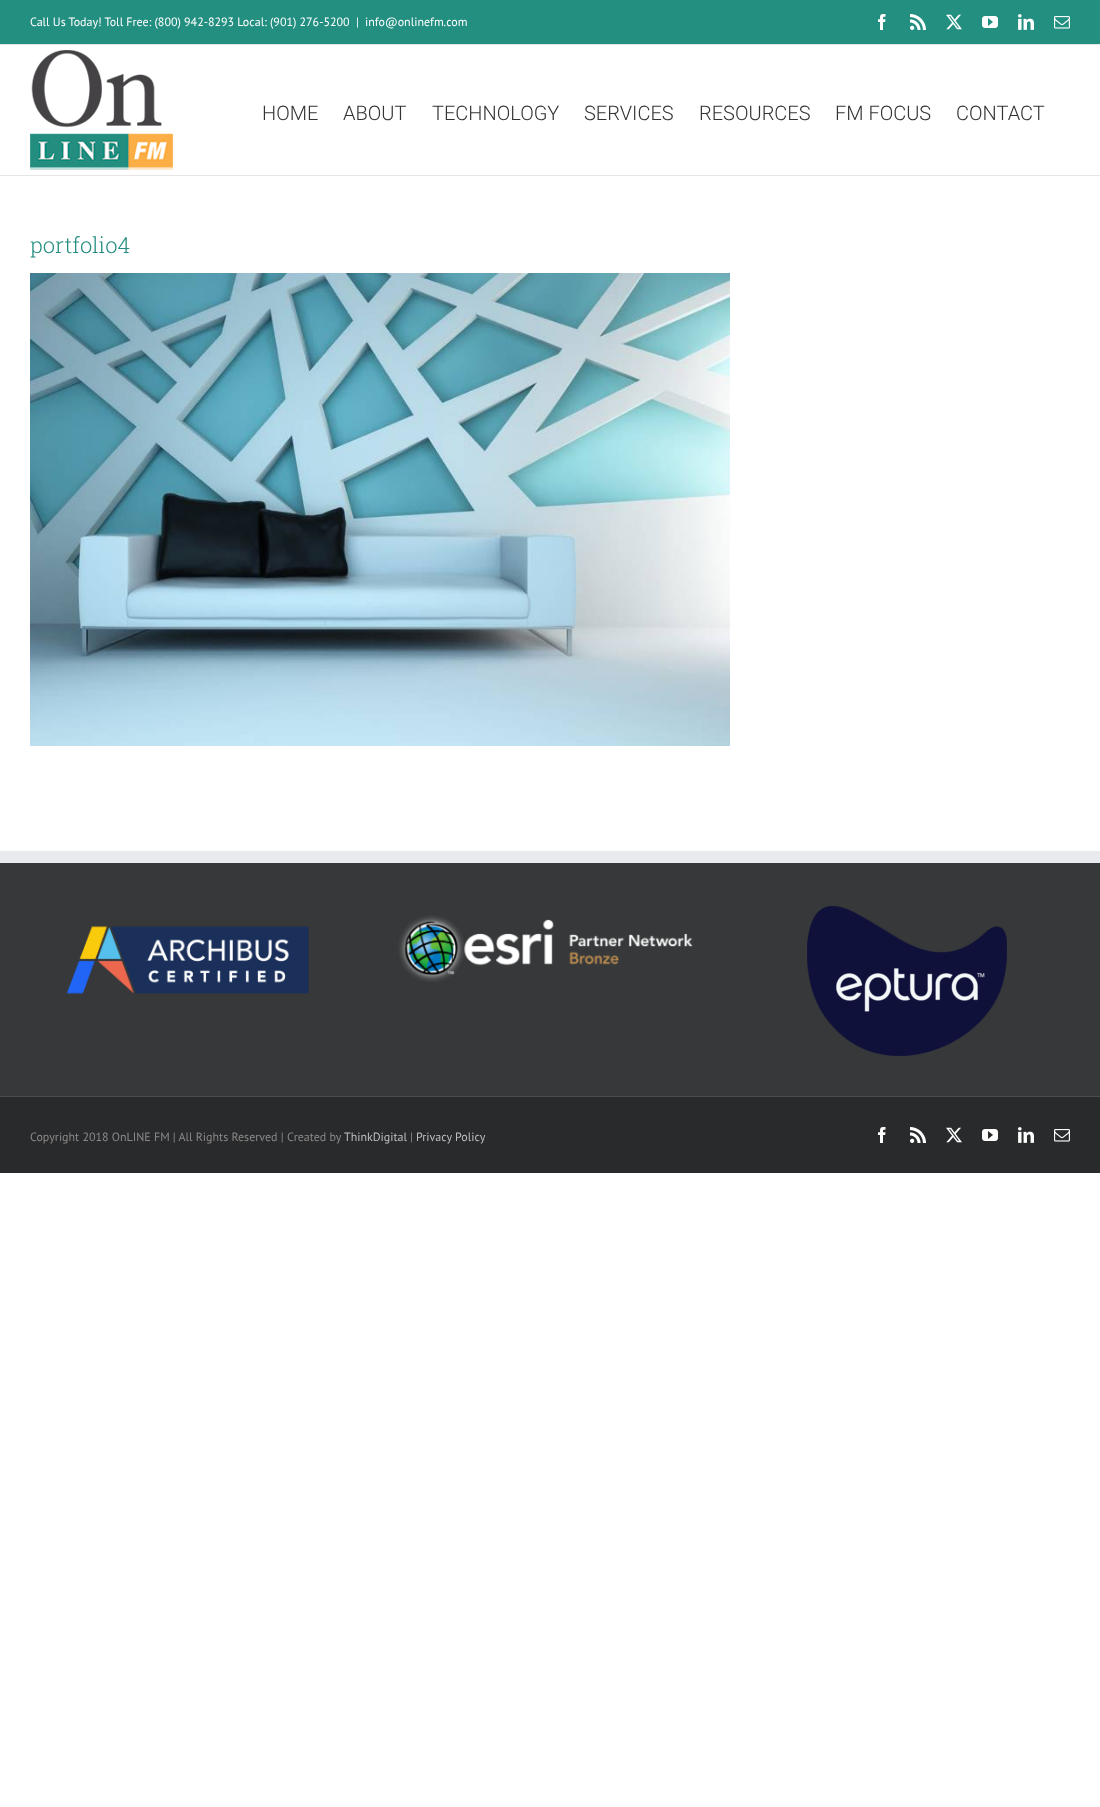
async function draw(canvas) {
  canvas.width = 1100
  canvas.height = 1807
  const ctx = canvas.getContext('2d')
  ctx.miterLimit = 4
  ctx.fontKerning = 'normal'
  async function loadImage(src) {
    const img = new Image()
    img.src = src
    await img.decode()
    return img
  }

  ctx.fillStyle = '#fff'
  ctx.fillRect(0, 0, 1100, 1807)
  ctx.fillStyle = '#238f80'
  ctx.fillRect(0, 0, 1100, 44)
  ctx.fillStyle = '#e5e5e5'
  ctx.fillRect(0, 44, 1100, 1)
  ctx.font = '12px PT Sans'
  ctx.fillStyle = '#fff'
  ctx.fillText('Call Us Today! Toll Free: (800) 942-8293 Local: (901) 276-5200', 30, 26)
  ctx.fillText('|', 356, 26)
  ctx.fillText('info@onlinefm.com', 365, 26)
  ctx.drawImage(await loadImage('image0.png'), 878, 14, 8, 16)
  ctx.drawImage(await loadImage('image1.png'), 910, 14, 16, 16)
  ctx.drawImage(await loadImage('image2.png'), 946, 14, 16, 16)
  ctx.drawImage(await loadImage('image3.png'), 982, 16, 16, 12)
  ctx.drawImage(await loadImage('image4.png'), 1018, 14, 16, 16)
  ctx.drawImage(await loadImage('image5.png'), 1054, 16, 16, 13)
  ctx.fillStyle = '#e5e5e5'
  ctx.fillRect(0, 175, 1100, 1)
  ctx.drawImage(await loadImage('image6.png'), 30, 50, 143, 120)
  ctx.font = '300 20px Roboto'
  ctx.fillStyle = '#333'
  ctx.fillText('HOME', 262, 120)
  ctx.fillText('ABOUT', 343, 120)
  ctx.fillText('TECHNOLOGY', 432, 120)
  ctx.fillText('SERVICES', 584, 120)
  ctx.fillText('RESOURCES', 699, 120)
  ctx.fillText('FM FOCUS', 835, 120)
  ctx.fillText('CONTACT', 956, 120)
  ctx.font = '300 22px Roboto Slab'
  ctx.fillStyle = '#238e80'
  ctx.fillText('portfolio4', 30, 253)
  ctx.drawImage(await loadImage('image7.png'), 30, 273, 700, 473)
  ctx.fillStyle = '#363839'
  ctx.fillRect(0, 863, 1100, 233)
  ctx.fillStyle = '#e9eaee'
  ctx.fillRect(0, 851, 1100, 12)
  ctx.drawImage(await loadImage('image8.png'), 66, 926, 243, 68)
  ctx.drawImage(await loadImage('image9.png'), 398, 915, 295, 67)
  ctx.drawImage(await loadImage('image10.png'), 807, 906, 200, 150)
  ctx.fillStyle = '#282a2b'
  ctx.fillRect(0, 1097, 1100, 76)
  ctx.fillStyle = '#4b4c4d'
  ctx.fillRect(0, 1096, 1100, 1)
  ctx.font = '12px PT Sans'
  ctx.fillStyle = '#8c8989'
  ctx.fillText('Copyright 2018 OnLINE FM | All Rights Reserved |', 30, 1141)
  ctx.fillText('Created by', 287, 1141)
  ctx.fillStyle = '#bfbfbf'
  ctx.fillText('ThinkDigital', 344, 1141)
  ctx.fillStyle = '#8c8989'
  ctx.fillText('|', 410, 1141)
  ctx.fillStyle = '#bfbfbf'
  ctx.fillText('Privacy Policy', 416, 1141)
  ctx.drawImage(await loadImage('image11.png'), 878, 1127, 8, 16)
  ctx.drawImage(await loadImage('image12.png'), 910, 1127, 16, 16)
  ctx.drawImage(await loadImage('image13.png'), 946, 1127, 16, 16)
  ctx.drawImage(await loadImage('image14.png'), 982, 1129, 16, 12)
  ctx.drawImage(await loadImage('image15.png'), 1018, 1127, 16, 16)
  ctx.drawImage(await loadImage('image16.png'), 1054, 1129, 16, 13)
}

draw(document.querySelector('canvas'))
